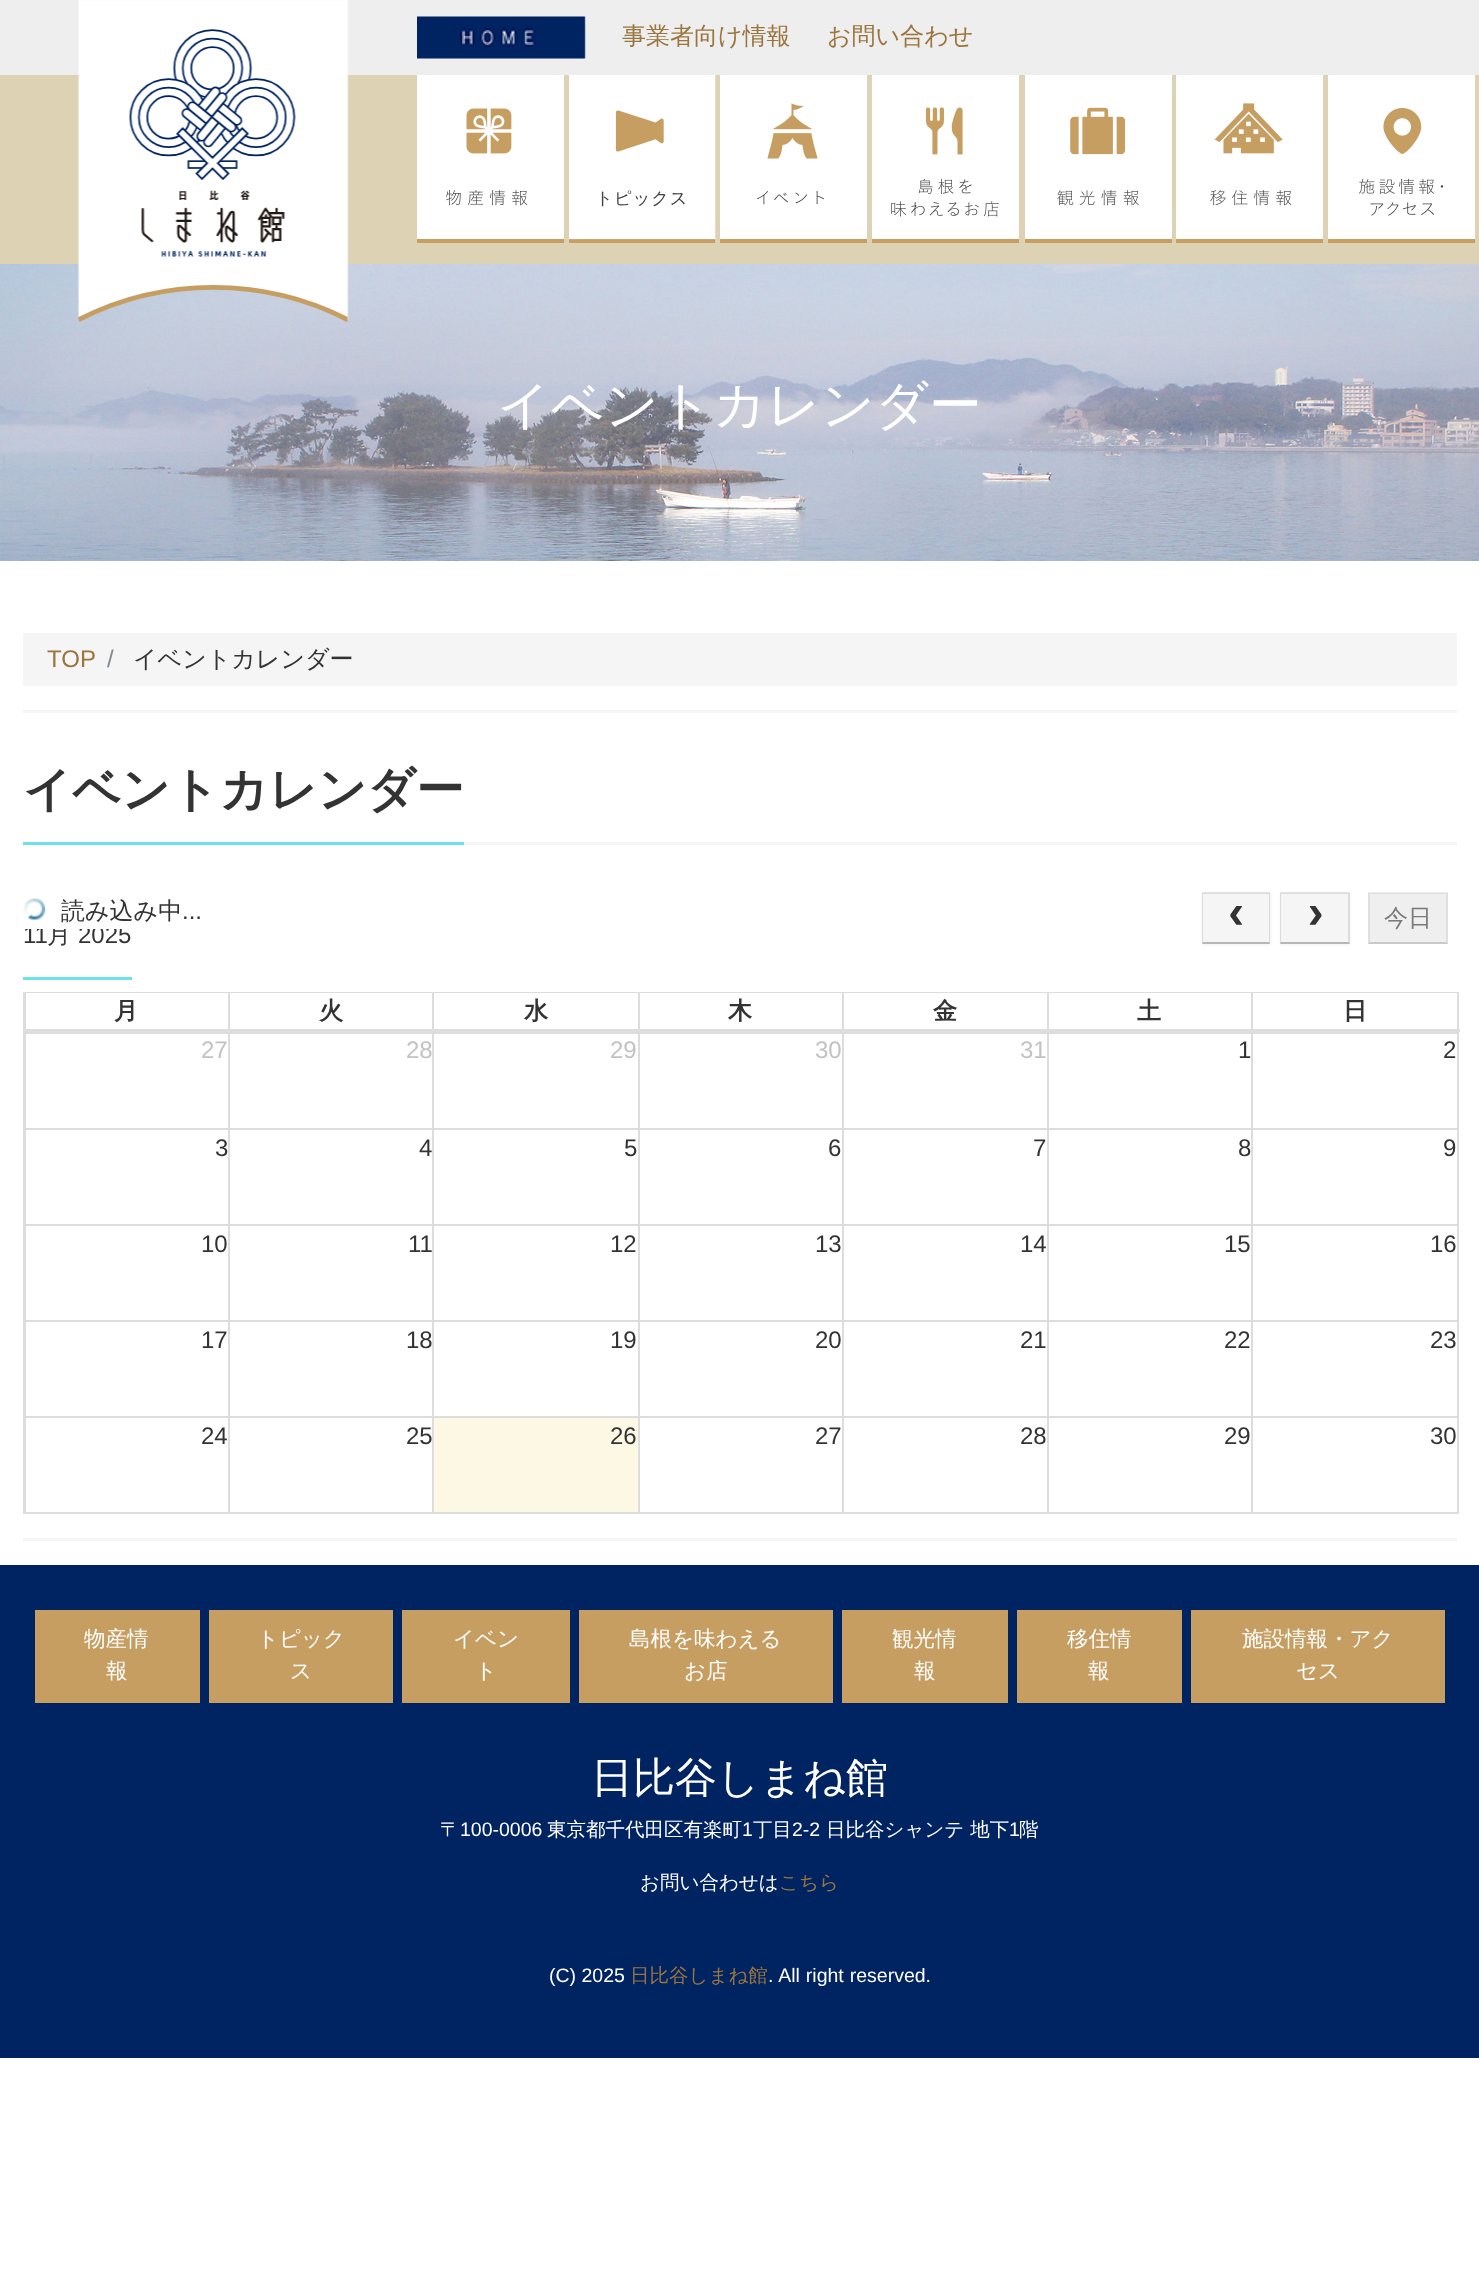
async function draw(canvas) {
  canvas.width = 1479
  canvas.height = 2279
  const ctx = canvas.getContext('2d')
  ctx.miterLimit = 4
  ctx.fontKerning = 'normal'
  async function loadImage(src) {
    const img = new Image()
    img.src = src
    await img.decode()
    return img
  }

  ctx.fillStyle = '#fff'
  ctx.fillRect(0, 0, 1479, 2279)
  ctx.fillStyle = '#ddd2b3'
  ctx.fillRect(0, 75, 1479, 189)
  ctx.fillStyle = '#eee'
  ctx.fillRect(0, 0, 1479, 75)
  ctx.drawImage(await loadImage('image9.png'), 0, 264, 1479, 297)
  ctx.drawImage(await loadImage('image0.png'), 78, 0, 271, 322)
  ctx.drawImage(await loadImage('image1.png'), 417, 16, 169, 43)
  ctx.font = '500 24px WenQuanYi Zen Hei'
  ctx.fillStyle = '#9a753d'
  ctx.fillText('事業者向け情報', 622, 44)
  ctx.fillText('お問い合わせ', 827, 44)
  ctx.drawImage(await loadImage('image2.png'), 417, 75, 147, 168)
  ctx.drawImage(await loadImage('image3.png'), 569, 75, 147, 168)
  ctx.drawImage(await loadImage('image4.png'), 720, 75, 147, 168)
  ctx.drawImage(await loadImage('image5.png'), 872, 75, 147, 168)
  ctx.drawImage(await loadImage('image6.png'), 1025, 75, 147, 168)
  ctx.drawImage(await loadImage('image7.png'), 1176, 75, 147, 168)
  ctx.drawImage(await loadImage('image8.png'), 1328, 75, 147, 168)
  ctx.font = '500 52.75px WenQuanYi Zen Hei'
  ctx.fillStyle = '#fff'
  ctx.fillText('イベントカレンダー', 497, 423)
  ctx.fillStyle = '#f5f5f5'
  ctx.fillRect(23, 633, 1434, 53)
  ctx.font = '24px Liberation Sans'
  ctx.fillStyle = '#9a753d'
  ctx.fillText('TOP', 47, 667)
  ctx.fillStyle = '#818a91'
  ctx.fillText('/', 107, 667)
  ctx.font = '500 24px WenQuanYi Zen Hei'
  ctx.fillStyle = '#333'
  ctx.fillText('イベントカレンダー', 133, 667)
  ctx.fillStyle = '#f5f5f5'
  ctx.fillRect(23, 710, 1434, 3)
  ctx.fillRect(23, 1538, 1434, 3)
  ctx.fillRect(464, 842, 993, 3)
  ctx.fillStyle = '#6ee2ea'
  ctx.fillRect(23, 842, 441, 3)
  ctx.font = 'bold 48px WenQuanYi Zen Hei'
  ctx.fillStyle = '#333'
  ctx.fillText('イベントカレンダー', 23, 806)
  ctx.font = '24px Liberation Sans'
  ctx.fillText('11', 23, 943)
  ctx.font = '500 24px WenQuanYi Zen Hei'
  ctx.fillText('月', 47, 943)
  ctx.font = '24px Liberation Sans'
  ctx.fillText('2025', 78, 943)
  ctx.fillStyle = '#fff'
  ctx.fillRect(25, 924, 105, 5)
  ctx.drawImage(await loadImage('image10.png'), 24, 898, 22, 22)
  ctx.font = '500 24px WenQuanYi Zen Hei'
  ctx.fillStyle = '#333'
  ctx.fillText('読み込み中', 61, 919)
  ctx.font = '24px Liberation Sans'
  ctx.fillText('...', 182, 919)
  ctx.fillStyle = '#0000000d'
  ctx.filter = 'blur(1.5px)'
  ctx.beginPath()
  ctx.rect(1202, 894, 69, 51)
  ctx.fill()
  ctx.filter = 'none'
  ctx.fillStyle = '#f5f5f5'
  ctx.fillRect(1202, 893, 69, 51)
  ctx.fillStyle = '#0000001a'
  ctx.beginPath()
  ctx.moveTo(1202, 892)
  ctx.lineTo(1270, 892)
  ctx.lineTo(1269, 894)
  ctx.lineTo(1203, 894)
  ctx.closePath()
  ctx.fill()
  ctx.beginPath()
  ctx.moveTo(1270, 892)
  ctx.lineTo(1270, 944)
  ctx.lineTo(1269, 942)
  ctx.lineTo(1269, 894)
  ctx.closePath()
  ctx.fill()
  ctx.fillStyle = '#00000040'
  ctx.beginPath()
  ctx.moveTo(1270, 944)
  ctx.lineTo(1202, 944)
  ctx.lineTo(1203, 942)
  ctx.lineTo(1269, 942)
  ctx.closePath()
  ctx.fill()
  ctx.fillStyle = '#0000001a'
  ctx.beginPath()
  ctx.moveTo(1202, 944)
  ctx.lineTo(1202, 892)
  ctx.lineTo(1203, 894)
  ctx.lineTo(1203, 942)
  ctx.closePath()
  ctx.fill()
  ctx.font = 'bold 48px Liberation Mono'
  ctx.fillStyle = '#333'
  ctx.fillText('‹', 1222, 928)
  ctx.fillStyle = '#0000000d'
  ctx.filter = 'blur(1.5px)'
  ctx.beginPath()
  ctx.rect(1280, 894, 70, 51)
  ctx.fill()
  ctx.filter = 'none'
  ctx.fillStyle = '#f5f5f5'
  ctx.fillRect(1280, 893, 70, 51)
  ctx.fillStyle = '#0000001a'
  ctx.beginPath()
  ctx.moveTo(1280, 892)
  ctx.lineTo(1350, 892)
  ctx.lineTo(1348, 894)
  ctx.lineTo(1281, 894)
  ctx.closePath()
  ctx.fill()
  ctx.beginPath()
  ctx.moveTo(1350, 892)
  ctx.lineTo(1350, 944)
  ctx.lineTo(1348, 942)
  ctx.lineTo(1348, 894)
  ctx.closePath()
  ctx.fill()
  ctx.fillStyle = '#00000040'
  ctx.beginPath()
  ctx.moveTo(1350, 944)
  ctx.lineTo(1280, 944)
  ctx.lineTo(1281, 942)
  ctx.lineTo(1348, 942)
  ctx.closePath()
  ctx.fill()
  ctx.fillStyle = '#0000001a'
  ctx.beginPath()
  ctx.moveTo(1280, 944)
  ctx.lineTo(1280, 892)
  ctx.lineTo(1281, 894)
  ctx.lineTo(1281, 942)
  ctx.closePath()
  ctx.fill()
  ctx.fillStyle = '#333'
  ctx.fillText('›', 1301, 928)
  ctx.fillStyle = '#efefef'
  ctx.fillRect(1368, 893, 80, 51)
  ctx.fillStyle = '#5959591a'
  ctx.beginPath()
  ctx.moveTo(1368, 892)
  ctx.lineTo(1448, 892)
  ctx.lineTo(1446, 894)
  ctx.lineTo(1370, 894)
  ctx.closePath()
  ctx.fill()
  ctx.beginPath()
  ctx.moveTo(1448, 892)
  ctx.lineTo(1448, 944)
  ctx.lineTo(1446, 942)
  ctx.lineTo(1446, 894)
  ctx.closePath()
  ctx.fill()
  ctx.fillStyle = '#59595940'
  ctx.beginPath()
  ctx.moveTo(1448, 944)
  ctx.lineTo(1368, 944)
  ctx.lineTo(1370, 942)
  ctx.lineTo(1446, 942)
  ctx.closePath()
  ctx.fill()
  ctx.fillStyle = '#5959591a'
  ctx.beginPath()
  ctx.moveTo(1368, 944)
  ctx.lineTo(1368, 892)
  ctx.lineTo(1370, 894)
  ctx.lineTo(1370, 942)
  ctx.closePath()
  ctx.fill()
  ctx.font = '500 24px WenQuanYi Zen Hei'
  ctx.fillStyle = '#7a7a7a'
  ctx.fillText('今日', 1384, 926)
  ctx.fillStyle = '#6ee2ea'
  ctx.fillRect(23, 977, 109, 3)
  ctx.fillStyle = '#ddd'
  ctx.fillRect(23, 992, 1435, 1)
  ctx.fillRect(1457, 1031, 2, 483)
  ctx.fillRect(1457, 992, 2, 40)
  ctx.fillRect(23, 1031, 1, 483)
  ctx.fillRect(23, 992, 2, 40)
  ctx.fillRect(23, 1029, 1437, 3)
  ctx.fillRect(25, 993, 1, 38)
  ctx.font = 'bold 24px WenQuanYi Zen Hei'
  ctx.fillStyle = '#333'
  ctx.fillText('月', 114, 1019)
  ctx.fillStyle = '#ddd'
  ctx.fillRect(228, 993, 2, 38)
  ctx.fillStyle = '#333'
  ctx.fillText('火', 319, 1019)
  ctx.fillStyle = '#ddd'
  ctx.fillRect(432, 993, 2, 38)
  ctx.fillStyle = '#333'
  ctx.fillText('水', 524, 1019)
  ctx.fillStyle = '#ddd'
  ctx.fillRect(638, 993, 2, 38)
  ctx.fillStyle = '#333'
  ctx.fillText('木', 728, 1019)
  ctx.fillStyle = '#ddd'
  ctx.fillRect(842, 993, 2, 38)
  ctx.fillStyle = '#333'
  ctx.fillText('金', 933, 1019)
  ctx.fillStyle = '#ddd'
  ctx.fillRect(1047, 993, 2, 38)
  ctx.fillStyle = '#333'
  ctx.fillText('土', 1137, 1019)
  ctx.fillStyle = '#ddd'
  ctx.fillRect(1251, 993, 2, 38)
  ctx.fillStyle = '#333'
  ctx.fillText('日', 1343, 1019)
  ctx.fillStyle = '#ddd'
  ctx.fillRect(1251, 1032, 207, 2)
  ctx.fillRect(1251, 1032, 2, 98)
  ctx.fillRect(1047, 1032, 206, 2)
  ctx.fillRect(1047, 1032, 2, 98)
  ctx.fillRect(842, 1032, 207, 2)
  ctx.fillRect(842, 1032, 2, 98)
  ctx.fillRect(638, 1032, 205, 2)
  ctx.fillRect(638, 1032, 2, 98)
  ctx.fillRect(432, 1032, 207, 2)
  ctx.fillRect(432, 1032, 2, 98)
  ctx.fillRect(228, 1032, 206, 2)
  ctx.fillRect(228, 1032, 2, 98)
  ctx.fillRect(24, 1032, 206, 2)
  ctx.fillRect(24, 1032, 2, 98)
  ctx.font = '24px Liberation Sans'
  ctx.fillStyle = '#c2c2c2'
  ctx.fillText('27', 201, 1058)
  ctx.fillText('28', 406, 1058)
  ctx.fillText('29', 610, 1058)
  ctx.fillText('30', 815, 1058)
  ctx.fillText('31', 1020, 1058)
  ctx.fillStyle = '#333'
  ctx.fillText('1', 1238, 1058)
  ctx.fillText('2', 1443, 1058)
  ctx.fillStyle = '#ddd'
  ctx.fillRect(1251, 1128, 207, 2)
  ctx.fillRect(1251, 1128, 2, 98)
  ctx.fillRect(1047, 1128, 206, 2)
  ctx.fillRect(1047, 1128, 2, 98)
  ctx.fillRect(842, 1128, 207, 2)
  ctx.fillRect(842, 1128, 2, 98)
  ctx.fillRect(638, 1128, 205, 2)
  ctx.fillRect(638, 1128, 2, 98)
  ctx.fillRect(432, 1128, 207, 2)
  ctx.fillRect(432, 1128, 2, 98)
  ctx.fillRect(228, 1128, 206, 2)
  ctx.fillRect(228, 1128, 2, 98)
  ctx.fillRect(24, 1128, 206, 2)
  ctx.fillRect(24, 1128, 2, 98)
  ctx.fillStyle = '#333'
  ctx.fillText('3', 215, 1156)
  ctx.fillText('4', 419, 1156)
  ctx.fillText('5', 624, 1156)
  ctx.fillText('6', 828, 1156)
  ctx.fillText('7', 1033, 1156)
  ctx.fillText('8', 1238, 1156)
  ctx.fillText('9', 1443, 1156)
  ctx.fillStyle = '#ddd'
  ctx.fillRect(1251, 1224, 207, 2)
  ctx.fillRect(1251, 1224, 2, 98)
  ctx.fillRect(1047, 1224, 206, 2)
  ctx.fillRect(1047, 1224, 2, 98)
  ctx.fillRect(842, 1224, 207, 2)
  ctx.fillRect(842, 1224, 2, 98)
  ctx.fillRect(638, 1224, 205, 2)
  ctx.fillRect(638, 1224, 2, 98)
  ctx.fillRect(432, 1224, 207, 2)
  ctx.fillRect(432, 1224, 2, 98)
  ctx.fillRect(228, 1224, 206, 2)
  ctx.fillRect(228, 1224, 2, 98)
  ctx.fillRect(24, 1224, 206, 2)
  ctx.fillRect(24, 1224, 2, 98)
  ctx.fillStyle = '#333'
  ctx.fillText('10', 201, 1252)
  ctx.fillText('11', 408, 1252)
  ctx.fillText('12', 610, 1252)
  ctx.fillText('13', 815, 1252)
  ctx.fillText('14', 1020, 1252)
  ctx.fillText('15', 1224, 1252)
  ctx.fillText('16', 1430, 1252)
  ctx.fillStyle = '#ddd'
  ctx.fillRect(1251, 1320, 207, 2)
  ctx.fillRect(1251, 1320, 2, 98)
  ctx.fillRect(1047, 1320, 206, 2)
  ctx.fillRect(1047, 1320, 2, 98)
  ctx.fillRect(842, 1320, 207, 2)
  ctx.fillRect(842, 1320, 2, 98)
  ctx.fillRect(638, 1320, 205, 2)
  ctx.fillRect(638, 1320, 2, 98)
  ctx.fillRect(432, 1320, 207, 2)
  ctx.fillRect(432, 1320, 2, 98)
  ctx.fillRect(228, 1320, 206, 2)
  ctx.fillRect(228, 1320, 2, 98)
  ctx.fillRect(24, 1320, 206, 2)
  ctx.fillRect(24, 1320, 2, 98)
  ctx.fillStyle = '#333'
  ctx.fillText('17', 201, 1348)
  ctx.fillText('18', 406, 1348)
  ctx.fillText('19', 610, 1348)
  ctx.fillText('20', 815, 1348)
  ctx.fillText('21', 1020, 1348)
  ctx.fillText('22', 1224, 1348)
  ctx.fillText('23', 1430, 1348)
  ctx.fillStyle = '#ddd'
  ctx.fillRect(1251, 1416, 207, 2)
  ctx.fillRect(1251, 1512, 207, 2)
  ctx.fillRect(1251, 1416, 2, 98)
  ctx.fillRect(1047, 1416, 206, 2)
  ctx.fillRect(1047, 1512, 206, 2)
  ctx.fillRect(1047, 1416, 2, 98)
  ctx.fillRect(842, 1416, 207, 2)
  ctx.fillRect(842, 1512, 207, 2)
  ctx.fillRect(842, 1416, 2, 98)
  ctx.fillRect(638, 1416, 205, 2)
  ctx.fillRect(638, 1512, 205, 2)
  ctx.fillRect(638, 1416, 2, 98)
  ctx.fillRect(432, 1416, 207, 2)
  ctx.fillRect(432, 1512, 207, 2)
  ctx.fillRect(432, 1416, 2, 98)
  ctx.fillRect(228, 1416, 206, 2)
  ctx.fillRect(228, 1512, 206, 2)
  ctx.fillRect(228, 1416, 2, 98)
  ctx.fillRect(24, 1416, 206, 2)
  ctx.fillRect(24, 1512, 206, 2)
  ctx.fillRect(24, 1416, 2, 98)
  ctx.fillStyle = '#fcf8e3'
  ctx.fillRect(434, 1418, 204, 94)
  ctx.fillStyle = '#333'
  ctx.fillText('24', 201, 1444)
  ctx.fillText('25', 406, 1444)
  ctx.fillText('26', 610, 1444)
  ctx.fillText('27', 815, 1444)
  ctx.fillText('28', 1020, 1444)
  ctx.fillText('29', 1224, 1444)
  ctx.fillText('30', 1430, 1444)
  ctx.fillStyle = '#002361'
  ctx.fillRect(0, 1565, 1479, 493)
  ctx.fillStyle = '#c69e62'
  ctx.fillRect(35, 1610, 165, 93)
  ctx.font = '500 21.5px WenQuanYi Zen Hei'
  ctx.fillStyle = '#fff'
  ctx.fillText('物産情', 84, 1646)
  ctx.fillText('報', 106, 1678)
  ctx.fillStyle = '#c69e62'
  ctx.fillRect(209, 1610, 184, 93)
  ctx.fillStyle = '#fff'
  ctx.fillText('トピック', 257, 1646)
  ctx.fillText('ス', 290, 1678)
  ctx.fillStyle = '#c69e62'
  ctx.fillRect(402, 1610, 168, 93)
  ctx.fillStyle = '#fff'
  ctx.fillText('イベン', 453, 1646)
  ctx.fillText('ト', 475, 1678)
  ctx.fillStyle = '#c69e62'
  ctx.fillRect(579, 1610, 254, 93)
  ctx.fillStyle = '#fff'
  ctx.fillText('島根を味わえる', 629, 1646)
  ctx.fillText('お店', 684, 1678)
  ctx.fillStyle = '#c69e62'
  ctx.fillRect(842, 1610, 166, 93)
  ctx.fillStyle = '#fff'
  ctx.fillText('観光情', 892, 1646)
  ctx.fillText('報', 914, 1678)
  ctx.fillStyle = '#c69e62'
  ctx.fillRect(1017, 1610, 165, 93)
  ctx.fillStyle = '#fff'
  ctx.fillText('移住情', 1067, 1646)
  ctx.fillText('報', 1088, 1678)
  ctx.fillStyle = '#c69e62'
  ctx.fillRect(1191, 1610, 254, 93)
  ctx.fillStyle = '#fff'
  ctx.fillText('施設情報・アク', 1242, 1646)
  ctx.fillText('セス', 1296, 1678)
  ctx.font = '500 42px WenQuanYi Zen Hei'
  ctx.fillText('日比谷しまね館', 591, 1792)
  ctx.font = '500 19.5px WenQuanYi Zen Hei'
  ctx.fillText('〒', 440, 1836)
  ctx.font = '19.5px Liberation Sans'
  ctx.fillText('100-0006', 460, 1836)
  ctx.font = '500 19.5px WenQuanYi Zen Hei'
  ctx.fillText('東京都千代田区有楽町', 547, 1836)
  ctx.font = '19.5px Liberation Sans'
  ctx.fillText('1', 742, 1836)
  ctx.font = '500 19.5px WenQuanYi Zen Hei'
  ctx.fillText('丁目', 753, 1836)
  ctx.font = '19.5px Liberation Sans'
  ctx.fillText('2-2', 792, 1836)
  ctx.font = '500 19.5px WenQuanYi Zen Hei'
  ctx.fillText('日比谷シャンテ 地下', 826, 1836)
  ctx.font = '19.5px Liberation Sans'
  ctx.fillText('1', 1009, 1836)
  ctx.font = '500 19.5px WenQuanYi Zen Hei'
  ctx.fillText('階', 1019, 1836)
  ctx.fillText('お問い合わせは', 640, 1889)
  ctx.fillStyle = '#9a753d'
  ctx.fillText('こちら', 779, 1889)
  ctx.font = '19.5px Liberation Sans'
  ctx.fillStyle = '#fff'
  ctx.fillText('(C) 2025', 549, 1982)
  ctx.font = '500 19.5px WenQuanYi Zen Hei'
  ctx.fillStyle = '#9a753d'
  ctx.fillText('日比谷しまね館', 630, 1982)
  ctx.wordSpacing = '0.5px'
  ctx.font = '19.5px Liberation Sans'
  ctx.fillStyle = '#fff'
  ctx.fillText('. All right reserved.', 768, 1982)
}

draw(document.querySelector('canvas'))
